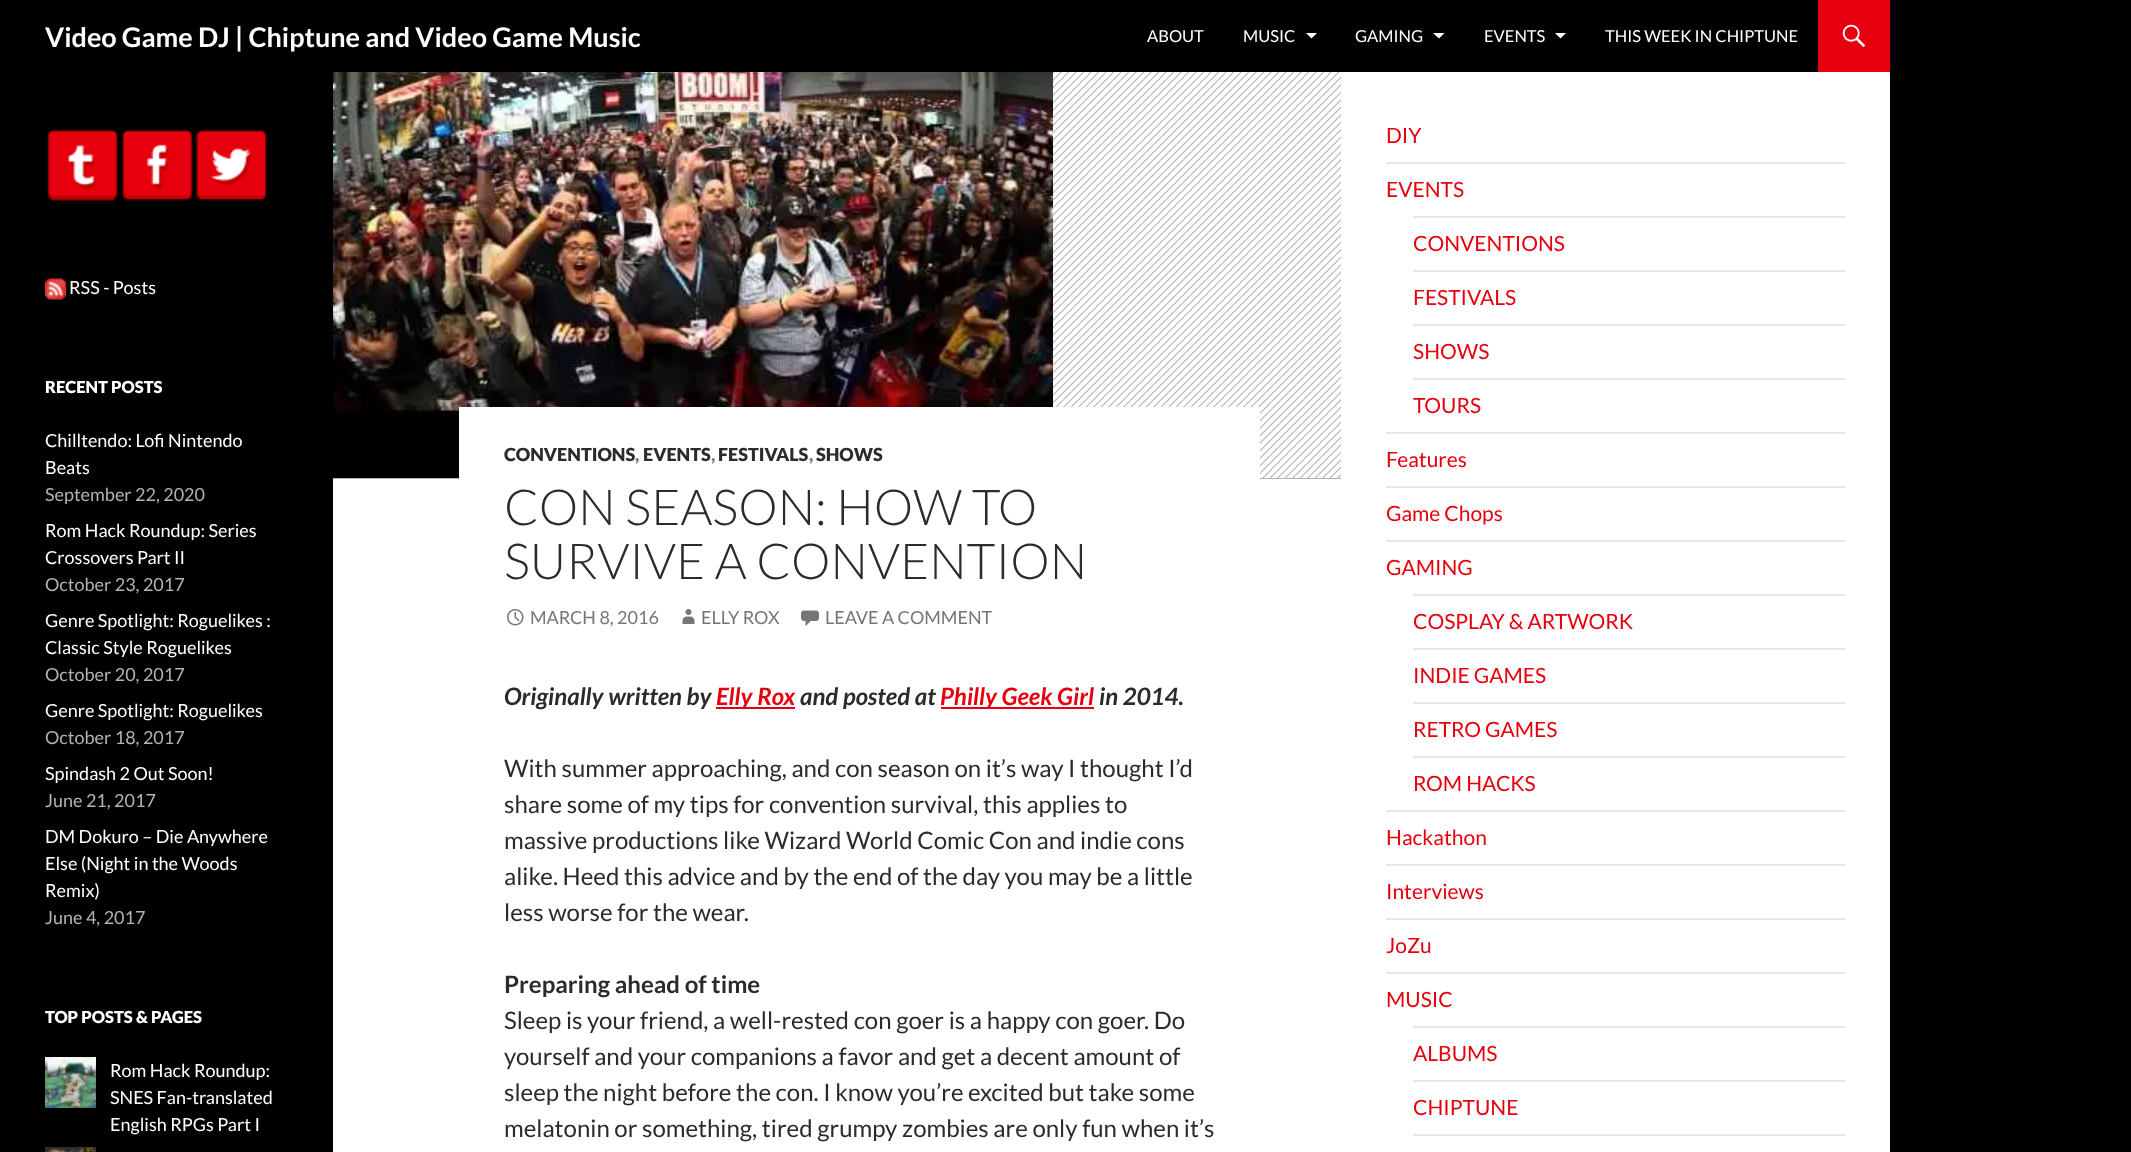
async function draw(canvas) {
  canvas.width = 2131
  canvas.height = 1152
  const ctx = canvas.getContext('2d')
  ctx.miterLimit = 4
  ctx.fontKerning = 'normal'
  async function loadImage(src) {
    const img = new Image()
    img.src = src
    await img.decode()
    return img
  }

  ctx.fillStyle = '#000'
  ctx.fillRect(0, 0, 2131, 1152)
  ctx.fillStyle = '#fff'
  ctx.fillRect(333, 72, 1557, 1080)
  ctx.font = 'bold 27px Lato'
  ctx.fillText('Video Game DJ | Chiptune and Video Game Music', 45, 47)
  ctx.font = '16.5px Lato'
  ctx.fillText('ABOUT', 1147, 42)
  ctx.fillText('MUSIC', 1243, 42)
  ctx.beginPath()
  ctx.moveTo(1306, 33)
  ctx.lineTo(1317, 33)
  ctx.lineTo(1311.5, 38.5)
  ctx.closePath()
  ctx.fill()
  ctx.fillText('GAMING', 1355, 42)
  ctx.beginPath()
  ctx.moveTo(1433, 33)
  ctx.lineTo(1444.5, 33)
  ctx.lineTo(1439, 38.5)
  ctx.closePath()
  ctx.fill()
  ctx.fillText('EVENTS', 1484, 42)
  ctx.beginPath()
  ctx.moveTo(1555, 33)
  ctx.lineTo(1566, 33)
  ctx.lineTo(1560.5, 38.5)
  ctx.closePath()
  ctx.fill()
  ctx.fillText('THIS WEEK IN CHIPTUNE', 1605, 42)
  ctx.fillStyle = '#e6000e'
  ctx.fillRect(1818, 0, 72, 72)
  ctx.drawImage(await loadImage('image0.png'), 1842, 24, 24, 24)
  ctx.drawImage(await loadImage('image1.png'), 47, 129, 221, 72)
  ctx.drawImage(await loadImage('image2.png'), 45, 278, 21, 22)
  ctx.font = '18px Lato'
  ctx.fillStyle = '#fff'
  ctx.fillText('RSS - Posts', 69, 294)
  ctx.font = '900 16.5px Lato'
  ctx.fillText('RECENT POSTS', 45, 393)
  ctx.font = '18px Lato'
  ctx.fillText('Chilltendo: Lofi Nintendo', 45, 447)
  ctx.fillText('Beats', 45, 474)
  ctx.fillStyle = '#b3b3b3'
  ctx.fillText('September 22, 2020', 45, 501)
  ctx.fillStyle = '#fff'
  ctx.fillText('Rom Hack Roundup: Series', 45, 537)
  ctx.fillText('Crossovers Part II', 45, 564)
  ctx.fillStyle = '#b3b3b3'
  ctx.fillText('October 23, 2017', 45, 591)
  ctx.fillStyle = '#fff'
  ctx.fillText('Genre Spotlight: Roguelikes :', 45, 627)
  ctx.fillText('Classic Style Roguelikes', 45, 654)
  ctx.fillStyle = '#b3b3b3'
  ctx.fillText('October 20, 2017', 45, 681)
  ctx.fillStyle = '#fff'
  ctx.fillText('Genre Spotlight: Roguelikes', 45, 717)
  ctx.fillStyle = '#b3b3b3'
  ctx.fillText('October 18, 2017', 45, 744)
  ctx.fillStyle = '#fff'
  ctx.fillText('Spindash 2 Out Soon!', 45, 780)
  ctx.fillStyle = '#b3b3b3'
  ctx.fillText('June 21, 2017', 45, 807)
  ctx.fillStyle = '#fff'
  ctx.fillText('DM Dokuro – Die Anywhere', 45, 843)
  ctx.fillText('Else (Night in the Woods', 45, 870)
  ctx.fillText('Remix)', 45, 897)
  ctx.fillStyle = '#b3b3b3'
  ctx.fillText('June 4, 2017', 45, 924)
  ctx.font = '900 16.5px Lato'
  ctx.fillStyle = '#fff'
  ctx.fillText('TOP POSTS & PAGES', 45, 1023)
  ctx.drawImage(await loadImage('image3.png'), 45, 1057, 51, 51)
  ctx.font = '18px Lato'
  ctx.fillText('Rom Hack Roundup:', 110, 1077)
  ctx.fillText('SNES Fan-translated', 110, 1104)
  ctx.fillText('English RPGs Part I', 110, 1131)
  ctx.drawImage(await loadImage('image4.png'), 45, 1147, 51, 5)
  ctx.fillStyle = '#b2b2b2'
  ctx.fillRect(333, 72, 1008, 407)
  ctx.drawImage(await loadImage('image5.png'), 1053, 72, 288, 406)
  ctx.drawImage(await loadImage('image6.png'), 333, 72, 720, 406)
  ctx.fillStyle = '#fff'
  ctx.fillRect(459, 407, 801, 72)
  ctx.font = '900 18px Lato'
  ctx.fillStyle = '#2b2b2b'
  ctx.fillText('CONVENTIONS', 504, 461)
  ctx.fillStyle = '#767676'
  ctx.fillText(',', 635, 461)
  ctx.fillStyle = '#2b2b2b'
  ctx.fillText('EVENTS', 643, 461)
  ctx.fillStyle = '#767676'
  ctx.fillText(',', 711, 461)
  ctx.fillStyle = '#2b2b2b'
  ctx.fillText('FESTIVALS', 718, 461)
  ctx.fillStyle = '#767676'
  ctx.fillText(',', 809, 461)
  ctx.fillStyle = '#2b2b2b'
  ctx.fillText('SHOWS', 816, 461)
  ctx.font = '300 49.5px Lato'
  ctx.fillText('CON SEASON: HOW TO', 504, 525)
  ctx.fillText('SURVIVE A CONVENTION', 504, 579)
  ctx.drawImage(await loadImage('image7.png'), 507, 609, 17, 17)
  ctx.font = '18px Lato'
  ctx.fillStyle = '#767676'
  ctx.fillText('MARCH 8, 2016', 530, 624)
  ctx.drawImage(await loadImage('image8.png'), 682, 609, 13, 15)
  ctx.fillText('ELLY ROX', 701, 624)
  ctx.drawImage(await loadImage('image9.png'), 801, 610, 18, 17)
  ctx.fillText('LEAVE A COMMENT', 825, 624)
  ctx.font = 'italic bold 24px Lato'
  ctx.fillStyle = '#2b2b2b'
  ctx.fillText('Originally written by', 504, 705)
  ctx.fillStyle = '#e6000e'
  ctx.fillRect(716, 707, 79, 2)
  ctx.fillText('Elly Rox', 716, 705)
  ctx.fillStyle = '#2b2b2b'
  ctx.fillText('and posted at', 800, 705)
  ctx.fillStyle = '#e6000e'
  ctx.fillRect(941, 707, 153, 2)
  ctx.fillText('Philly Geek Girl', 940, 705)
  ctx.fillStyle = '#2b2b2b'
  ctx.fillText('in 2014.', 1099, 705)
  ctx.font = '24px Lato'
  ctx.fillText('With summer approaching, and con season on it’s way I thought I’d', 504, 777)
  ctx.fillText('share some of my tips for convention survival, this applies to', 504, 813)
  ctx.fillText('massive productions like Wizard World Comic Con and indie cons', 504, 849)
  ctx.fillText('alike. Heed this advice and by the end of the day you may be a little', 504, 885)
  ctx.fillText('less worse for the wear.', 504, 921)
  ctx.font = 'bold 24px Lato'
  ctx.fillText('Preparing ahead of time', 504, 993)
  ctx.font = '24px Lato'
  ctx.fillText('Sleep is your friend, a well-rested con goer is a happy con goer. Do', 504, 1029)
  ctx.fillText('yourself and your companions a favor and get a decent amount of', 504, 1065)
  ctx.fillText('sleep the night before the con. I know you’re excited but take some', 504, 1101)
  ctx.fillText('melatonin or something, tired grumpy zombies are only fun when it’s', 504, 1137)
  ctx.font = '21px Lato'
  ctx.fillStyle = '#e6000e'
  ctx.fillText('DIY', 1386, 143)
  ctx.fillStyle = '#e6e6e6'
  ctx.fillRect(1386, 162, 459, 2)
  ctx.fillStyle = '#e6000e'
  ctx.fillText('EVENTS', 1386, 197)
  ctx.fillStyle = '#e6e6e6'
  ctx.fillRect(1413, 216, 432, 2)
  ctx.fillStyle = '#e6000e'
  ctx.fillText('CONVENTIONS', 1413, 251)
  ctx.fillStyle = '#e6e6e6'
  ctx.fillRect(1413, 270, 432, 2)
  ctx.fillStyle = '#e6000e'
  ctx.fillText('FESTIVALS', 1413, 305)
  ctx.fillStyle = '#e6e6e6'
  ctx.fillRect(1413, 324, 432, 2)
  ctx.fillStyle = '#e6000e'
  ctx.fillText('SHOWS', 1413, 359)
  ctx.fillStyle = '#e6e6e6'
  ctx.fillRect(1413, 378, 432, 2)
  ctx.fillStyle = '#e6000e'
  ctx.fillText('TOURS', 1413, 413)
  ctx.fillStyle = '#e6e6e6'
  ctx.fillRect(1386, 432, 459, 2)
  ctx.fillStyle = '#e6000e'
  ctx.fillText('Features', 1386, 467)
  ctx.fillStyle = '#e6e6e6'
  ctx.fillRect(1386, 486, 459, 2)
  ctx.fillStyle = '#e6000e'
  ctx.fillText('Game Chops', 1386, 521)
  ctx.fillStyle = '#e6e6e6'
  ctx.fillRect(1386, 540, 459, 2)
  ctx.fillStyle = '#e6000e'
  ctx.fillText('GAMING', 1386, 575)
  ctx.fillStyle = '#e6e6e6'
  ctx.fillRect(1413, 594, 432, 2)
  ctx.fillStyle = '#e6000e'
  ctx.fillText('COSPLAY & ARTWORK', 1413, 629)
  ctx.fillStyle = '#e6e6e6'
  ctx.fillRect(1413, 648, 432, 2)
  ctx.fillStyle = '#e6000e'
  ctx.fillText('INDIE GAMES', 1413, 683)
  ctx.fillStyle = '#e6e6e6'
  ctx.fillRect(1413, 702, 432, 2)
  ctx.fillStyle = '#e6000e'
  ctx.fillText('RETRO GAMES', 1413, 737)
  ctx.fillStyle = '#e6e6e6'
  ctx.fillRect(1413, 756, 432, 2)
  ctx.fillStyle = '#e6000e'
  ctx.fillText('ROM HACKS', 1413, 791)
  ctx.fillStyle = '#e6e6e6'
  ctx.fillRect(1386, 810, 459, 2)
  ctx.fillStyle = '#e6000e'
  ctx.fillText('Hackathon', 1386, 845)
  ctx.fillStyle = '#e6e6e6'
  ctx.fillRect(1386, 864, 459, 2)
  ctx.fillStyle = '#e6000e'
  ctx.fillText('Interviews', 1386, 899)
  ctx.fillStyle = '#e6e6e6'
  ctx.fillRect(1386, 918, 459, 2)
  ctx.fillStyle = '#e6000e'
  ctx.fillText('JoZu', 1386, 953)
  ctx.fillStyle = '#e6e6e6'
  ctx.fillRect(1386, 972, 459, 2)
  ctx.fillStyle = '#e6000e'
  ctx.fillText('MUSIC', 1386, 1007)
  ctx.fillStyle = '#e6e6e6'
  ctx.fillRect(1413, 1026, 432, 2)
  ctx.fillStyle = '#e6000e'
  ctx.fillText('ALBUMS', 1413, 1061)
  ctx.fillStyle = '#e6e6e6'
  ctx.fillRect(1413, 1080, 432, 2)
  ctx.fillStyle = '#e6000e'
  ctx.fillText('CHIPTUNE', 1413, 1115)
  ctx.fillStyle = '#e6e6e6'
  ctx.fillRect(1413, 1134, 432, 2)
}

draw(document.querySelector('canvas'))
